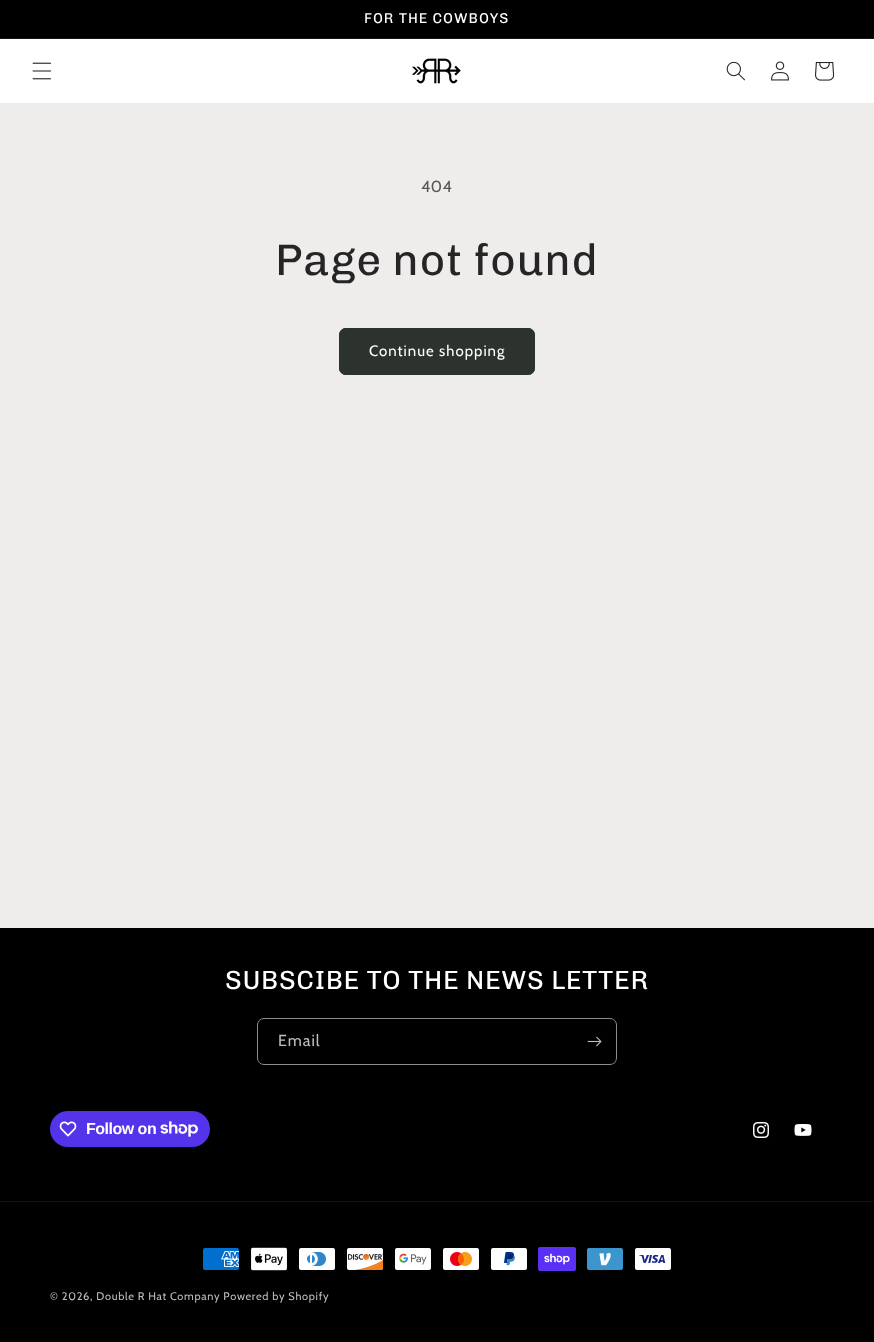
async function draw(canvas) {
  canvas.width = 874
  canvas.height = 1342
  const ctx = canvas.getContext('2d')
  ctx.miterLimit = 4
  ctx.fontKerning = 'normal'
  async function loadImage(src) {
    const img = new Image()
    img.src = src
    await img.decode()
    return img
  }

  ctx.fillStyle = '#efecec'
  ctx.fillRect(0, 0, 874, 1342)
  ctx.fillStyle = '#000'
  ctx.fillRect(0, 0, 874, 38)
  ctx.fillStyle = '#141414'
  ctx.fillRect(0, 38, 874, 1)
  ctx.letterSpacing = '1px'
  ctx.font = '14.25px Chivo'
  ctx.fillStyle = '#fff'
  ctx.fillText('FOR THE COWBOYS', 364, 23)
  ctx.fillRect(0, 39, 874, 64)
  ctx.drawImage(await loadImage('image0.png'), 32, 62, 20, 18)
  ctx.drawImage(await loadImage('image1.png'), 412, 58, 49, 26)
  ctx.drawImage(await loadImage('image2.png'), 726, 61, 19, 20)
  ctx.drawImage(await loadImage('image3.png'), 771, 61, 18, 20)
  ctx.drawImage(await loadImage('image4.png'), 815, 62, 20, 19)
  ctx.letterSpacing = '0.5px'
  ctx.font = '16px Cabin'
  ctx.fillStyle = '#585757'
  ctx.fillText('404', 421, 192)
  ctx.letterSpacing = '0.65px'
  ctx.font = '44px Chivo'
  ctx.fillStyle = '#252525'
  ctx.fillText('Page not found', 275, 275)
  ctx.fillStyle = '#2c332f'
  ctx.beginPath()
  ctx.roundRect(339, 328, 196, 47, 7)
  ctx.fill()
  ctx.beginPath()
  ctx.roundRect(339.5, 328.5, 195, 46, 6.5)
  ctx.strokeStyle = '#2c332f'
  ctx.stroke()
  ctx.letterSpacing = '1px'
  ctx.font = '15px Cabin'
  ctx.fillStyle = '#fff'
  ctx.fillText('Continue shopping', 369, 356)
  ctx.fillStyle = '#000'
  ctx.fillRect(0, 928, 874, 414)
  ctx.letterSpacing = '0.65px'
  ctx.font = '26.4px Chivo'
  ctx.fillStyle = '#fff'
  ctx.fillText('SUBSCIBE TO THE NEWS LETTER', 225, 989)
  ctx.beginPath()
  ctx.roundRect(257.5, 1018.5, 359, 46, 6.5)
  ctx.strokeStyle = '#8c8c8c'
  ctx.stroke()
  ctx.letterSpacing = '1px'
  ctx.font = '16px Cabin'
  ctx.fillStyle = '#bfbfbf'
  ctx.fillText('Email', 278, 1046)
  ctx.drawImage(await loadImage('image5.png'), 587, 1036, 15, 11)
  ctx.fillStyle = '#5433eb'
  ctx.beginPath()
  ctx.roundRect(50, 1111, 160, 36, 18)
  ctx.fill()
  ctx.drawImage(await loadImage('image6.png'), 59, 1121, 18, 16)
  ctx.letterSpacing = '-0.5px'
  ctx.font = 'bold 16px Liberation Sans'
  ctx.fillStyle = '#fff'
  ctx.fillText('Follow on', 86, 1134)
  ctx.drawImage(await loadImage('image7.png'), 160, 1121, 38, 16)
  ctx.drawImage(await loadImage('image8.png'), 753, 1122, 16, 16)
  ctx.drawImage(await loadImage('image9.png'), 794, 1124, 18, 12)
  ctx.fillStyle = '#141414'
  ctx.fillRect(0, 1201, 874, 1)
  ctx.drawImage(await loadImage('image10.png'), 203, 1248, 36, 22)
  ctx.drawImage(await loadImage('image11.png'), 251, 1247, 36, 24)
  ctx.drawImage(await loadImage('image12.png'), 299, 1248, 36, 22)
  ctx.drawImage(await loadImage('image13.png'), 347, 1248, 37, 22)
  ctx.drawImage(await loadImage('image14.png'), 395, 1248, 36, 22)
  ctx.drawImage(await loadImage('image15.png'), 443, 1248, 36, 22)
  ctx.drawImage(await loadImage('image16.png'), 491, 1248, 36, 22)
  ctx.drawImage(await loadImage('image17.png'), 538, 1247, 38, 24)
  ctx.drawImage(await loadImage('image18.png'), 587, 1248, 36, 22)
  ctx.drawImage(await loadImage('image19.png'), 635, 1248, 36, 22)
  ctx.letterSpacing = '0.7px'
  ctx.font = '11px Cabin'
  ctx.fillStyle = '#bfbfbf'
  ctx.fillText('© 2026, Double R Hat Company Powered by Shopify', 50, 1300)
}

draw(document.querySelector('canvas'))
